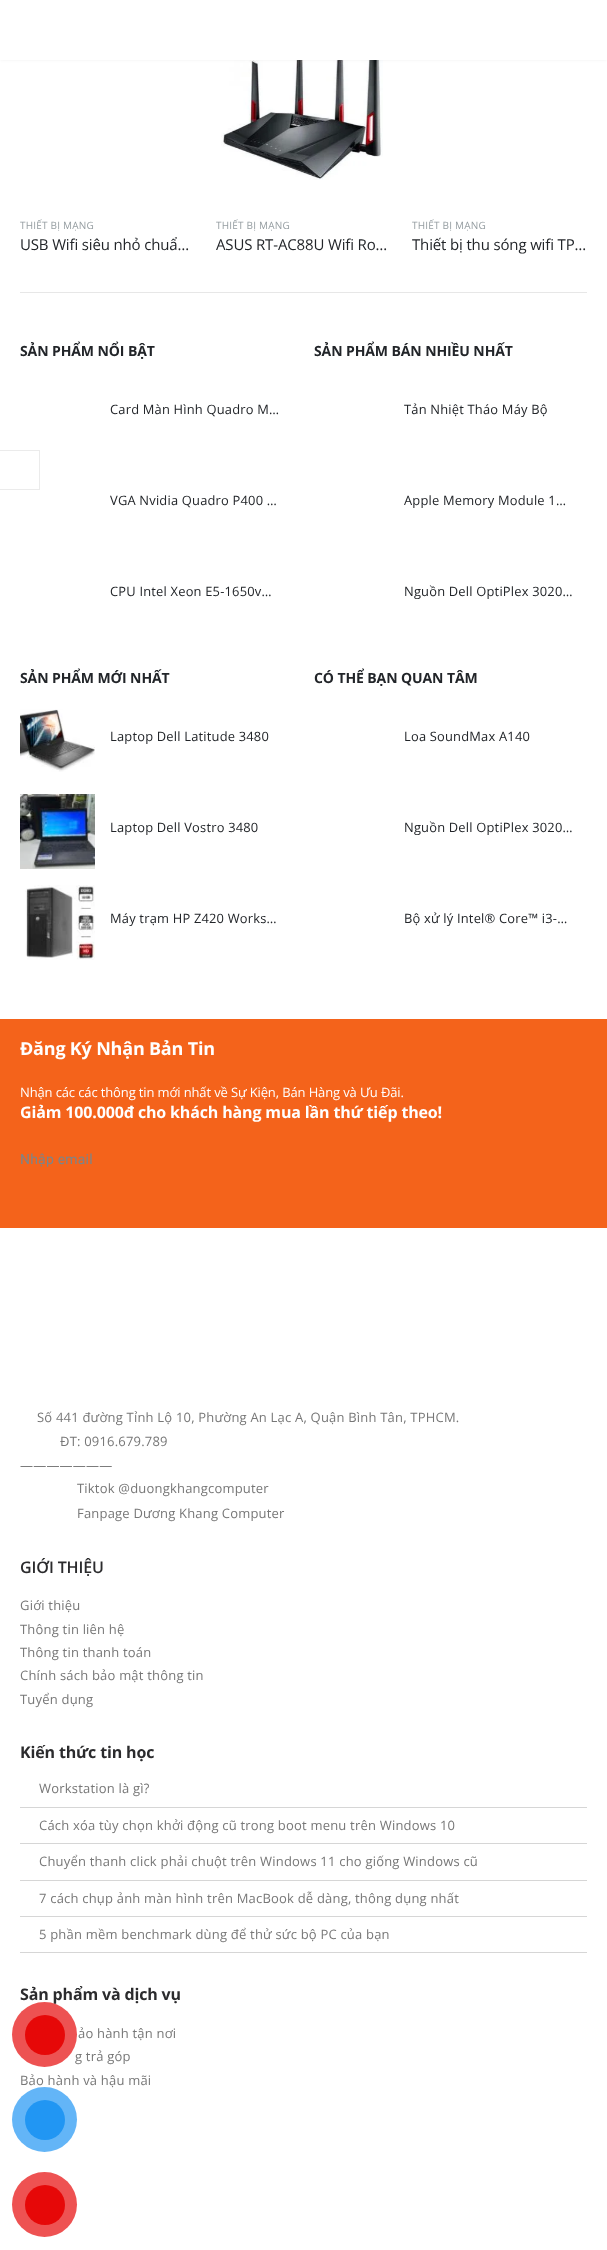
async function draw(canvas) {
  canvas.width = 607
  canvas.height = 2250
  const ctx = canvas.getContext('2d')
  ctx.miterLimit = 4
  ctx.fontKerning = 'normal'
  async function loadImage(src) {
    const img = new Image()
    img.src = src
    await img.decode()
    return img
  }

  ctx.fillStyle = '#fff'
  ctx.fillRect(0, 0, 607, 2250)
  ctx.drawImage(await loadImage('image0.png'), 221, 60, 162, 120)
  ctx.fillStyle = '#0000000f'
  ctx.filter = 'blur(1.5px)'
  ctx.beginPath()
  ctx.rect(0, 0, 607, 60)
  ctx.fill()
  ctx.filter = 'none'
  ctx.fillStyle = '#fff'
  ctx.fillRect(0, 0, 607, 60)
  ctx.letterSpacing = '0.2px'
  ctx.font = '10px Open Sans'
  ctx.fillStyle = '#959da1'
  ctx.fillText('THIẾT BỊ MẠNG', 20, 229)
  ctx.letterSpacing = '-0.15px'
  ctx.font = '15px Open Sans'
  ctx.fillStyle = '#222529'
  ctx.fillText('USB Wifi siêu nhỏ chuẩ…', 20, 250)
  ctx.letterSpacing = '0.2px'
  ctx.font = '10px Open Sans'
  ctx.fillStyle = '#959da1'
  ctx.fillText('THIẾT BỊ MẠNG', 216, 229)
  ctx.letterSpacing = '-0.15px'
  ctx.font = '15px Open Sans'
  ctx.fillStyle = '#222529'
  ctx.fillText('ASUS RT-AC88U Wifi Ro…', 216, 250)
  ctx.letterSpacing = '0.2px'
  ctx.font = '10px Open Sans'
  ctx.fillStyle = '#959da1'
  ctx.fillText('THIẾT BỊ MẠNG', 412, 229)
  ctx.letterSpacing = '-0.15px'
  ctx.font = '15px Open Sans'
  ctx.fillStyle = '#222529'
  ctx.fillText('Thiết bị thu sóng wifi TP…', 412, 250)
  ctx.fillStyle = '#e7e7e7'
  ctx.fillRect(20, 292, 567, 1)
  ctx.letterSpacing = '-0.1px'
  ctx.font = 'bold 14px Open Sans'
  ctx.fillStyle = '#222529'
  ctx.fillText('SẢN PHẨM NỔI BẬT', 20, 356)
  ctx.letterSpacing = '0.2px'
  ctx.font = '12.9px Open Sans'
  ctx.fillText('Card Màn Hình Quadro M…', 110, 414)
  ctx.fillText('VGA Nvidia Quadro P400 …', 110, 505)
  ctx.fillText('CPU Intel Xeon E5-1650v…', 110, 596)
  ctx.letterSpacing = '-0.1px'
  ctx.font = 'bold 14px Open Sans'
  ctx.fillText('SẢN PHẨM BÁN NHIỀU NHẤT', 314, 356)
  ctx.letterSpacing = '0.2px'
  ctx.font = '12.9px Open Sans'
  ctx.fillText('Tản Nhiệt Tháo Máy Bộ', 404, 414)
  ctx.fillText('Apple Memory Module 1…', 404, 505)
  ctx.fillText('Nguồn Dell OptiPlex 3020…', 404, 596)
  ctx.letterSpacing = '-0.1px'
  ctx.font = 'bold 14px Open Sans'
  ctx.fillText('SẢN PHẨM MỚI NHẤT', 20, 683)
  ctx.drawImage(await loadImage('image1.png'), 20, 709, 75, 63)
  ctx.letterSpacing = '0.2px'
  ctx.font = '12.9px Open Sans'
  ctx.fillText('Laptop Dell Latitude 3480', 110, 741)
  ctx.drawImage(await loadImage('image2.png'), 20, 794, 75, 75)
  ctx.fillText('Laptop Dell Vostro 3480', 110, 832)
  ctx.drawImage(await loadImage('image3.png'), 25, 885, 70, 75)
  ctx.fillText('Máy trạm HP Z420 Works…', 110, 923)
  ctx.letterSpacing = '-0.1px'
  ctx.font = 'bold 14px Open Sans'
  ctx.fillText('CÓ THỂ BẠN QUAN TÂM', 314, 683)
  ctx.letterSpacing = '0.2px'
  ctx.font = '12.9px Open Sans'
  ctx.fillText('Loa SoundMax A140', 404, 741)
  ctx.fillText('Nguồn Dell OptiPlex 3020…', 404, 832)
  ctx.fillText('Bộ xử lý Intel® Core™ i3-…', 404, 923)
  ctx.fillStyle = '#ebebeb'
  ctx.beginPath()
  ctx.moveTo(0, 450)
  ctx.lineTo(40, 450)
  ctx.lineTo(39, 451)
  ctx.lineTo(0, 451)
  ctx.closePath()
  ctx.fill()
  ctx.fillStyle = '#00000014'
  ctx.beginPath()
  ctx.moveTo(40, 450)
  ctx.lineTo(40, 490)
  ctx.lineTo(39, 489)
  ctx.lineTo(39, 451)
  ctx.closePath()
  ctx.fill()
  ctx.beginPath()
  ctx.moveTo(40, 490)
  ctx.lineTo(0, 490)
  ctx.lineTo(0, 489)
  ctx.lineTo(39, 489)
  ctx.closePath()
  ctx.fill()
  ctx.fillStyle = '#f4631b'
  ctx.fillRect(0, 1019, 607, 209)
  ctx.letterSpacing = '-0.2px'
  ctx.font = 'bold 18px Open Sans'
  ctx.fillStyle = '#fff'
  ctx.fillText('Đăng Ký Nhận Bản Tin', 20, 1055)
  ctx.letterSpacing = '-0.13px'
  ctx.font = '13px Open Sans'
  ctx.fillText('Nhận các các thông tin mới nhất về Sự Kiện, Bán Hàng và Ưu Đãi.', 20, 1097)
  ctx.letterSpacing = '-0.15px'
  ctx.font = 'bold 16px Open Sans'
  ctx.fillText('Giảm 100.000đ cho khách hàng mua lần thứ tiếp theo!', 20, 1118)
  ctx.letterSpacing = '0.2px'
  ctx.font = '14px Roboto'
  ctx.fillStyle = '#7b858a'
  ctx.fillText('Nhập email', 20, 1164)
  ctx.font = '13px Open Sans'
  ctx.fillStyle = '#777'
  ctx.fillText('Số 441 đường Tỉnh Lộ 10, Phường An Lạc A, Quận Bình Tân, TPHCM.', 37, 1422)
  ctx.fillText('ĐT: 0916.679.789', 60, 1446)
  ctx.fillText('———————', 20, 1470)
  ctx.fillText('Tiktok @duongkhangcomputer', 77, 1493)
  ctx.fillText('Fanpage Dương Khang Computer', 77, 1518)
  ctx.letterSpacing = '-0.15px'
  ctx.font = '600 16px Open Sans'
  ctx.fillStyle = '#2b2b2d'
  ctx.fillText('GIỚI THIỆU', 20, 1573)
  ctx.letterSpacing = '0.2px'
  ctx.font = '13px Open Sans'
  ctx.fillStyle = '#777'
  ctx.fillText('Giới thiệu', 20, 1610)
  ctx.fillText('Thông tin liên hệ', 20, 1634)
  ctx.fillText('Thông tin thanh toán', 20, 1657)
  ctx.fillText('Chính sách bảo mật thông tin', 20, 1680)
  ctx.fillText('Tuyển dụng', 20, 1704)
  ctx.letterSpacing = '-0.15px'
  ctx.font = 'bold 16px Open Sans'
  ctx.fillStyle = '#2b2b2d'
  ctx.fillText('Kiến thức tin học', 20, 1758)
  ctx.fillStyle = '#d6d6d6'
  ctx.fillRect(20, 1952, 567, 1)
  ctx.letterSpacing = '0.2px'
  ctx.font = '13px Open Sans'
  ctx.fillStyle = '#777'
  ctx.fillText('Workstation là gì?', 39, 1793)
  ctx.fillStyle = '#d6d6d6'
  ctx.fillRect(20, 1807, 567, 1)
  ctx.fillStyle = '#777'
  ctx.fillText('Cách xóa tùy chọn khởi động cũ trong boot menu trên Windows 10', 39, 1830)
  ctx.fillStyle = '#d6d6d6'
  ctx.fillRect(20, 1843, 567, 1)
  ctx.fillStyle = '#777'
  ctx.fillText('Chuyển thanh click phải chuột trên Windows 11 cho giống Windows cũ', 39, 1866)
  ctx.fillStyle = '#d6d6d6'
  ctx.fillRect(20, 1880, 567, 1)
  ctx.fillStyle = '#777'
  ctx.fillText('7 cách chụp ảnh màn hình trên MacBook dễ dàng, thông dụng nhất', 39, 1903)
  ctx.fillStyle = '#d6d6d6'
  ctx.fillRect(20, 1916, 567, 1)
  ctx.fillStyle = '#777'
  ctx.fillText('5 phần mềm benchmark dùng để thử sức bộ PC của bạn', 39, 1939)
  ctx.letterSpacing = '-0.15px'
  ctx.font = 'bold 16px Open Sans'
  ctx.fillStyle = '#2b2b2d'
  ctx.fillText('Sản phẩm và dịch vụ', 20, 2000)
  ctx.letterSpacing = '0.2px'
  ctx.font = '13px Open Sans'
  ctx.fillStyle = '#777'
  ctx.fillText('ảo hành tận nơi', 78, 2038)
  ctx.fillText('g trả góp', 75, 2061)
  ctx.fillText('Bảo hành và hậu mãi', 20, 2085)
  ctx.fillStyle = '#e60808b3'
  ctx.beginPath()
  ctx.arc(44.5, 2034.5, 32.5, 0, 2 * Math.PI)
  ctx.fill()
  ctx.fillStyle = '#e60808'
  ctx.beginPath()
  ctx.arc(45, 2035, 20, 0, 2 * Math.PI)
  ctx.fill()
  ctx.fillStyle = '#2196f3b3'
  ctx.beginPath()
  ctx.arc(44.5, 2119.5, 32.5, 0, 2 * Math.PI)
  ctx.fill()
  ctx.fillStyle = '#2196f3'
  ctx.beginPath()
  ctx.arc(45, 2120, 20, 0, 2 * Math.PI)
  ctx.fill()
  ctx.fillStyle = '#ee5252'
  ctx.beginPath()
  ctx.arc(44.5, 2204.5, 32.5, 0, 2 * Math.PI)
  ctx.fill()
  ctx.fillStyle = '#e60808'
  ctx.beginPath()
  ctx.arc(45, 2205, 20, 0, 2 * Math.PI)
  ctx.fill()
}

draw(document.querySelector('canvas'))
